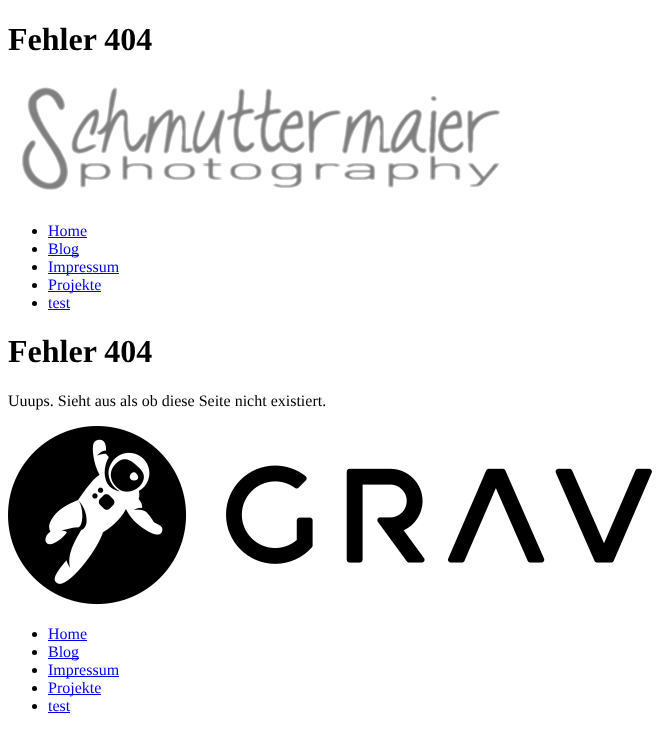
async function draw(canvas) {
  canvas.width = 661
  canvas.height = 753
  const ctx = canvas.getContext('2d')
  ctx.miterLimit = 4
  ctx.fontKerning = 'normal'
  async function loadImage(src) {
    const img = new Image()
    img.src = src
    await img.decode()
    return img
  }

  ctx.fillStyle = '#fff'
  ctx.fillRect(0, 0, 661, 753)
  ctx.font = 'bold 32px Liberation Serif'
  ctx.fillStyle = '#000'
  ctx.fillText('Fehler 404', 8, 50)
  ctx.drawImage(await loadImage('image0.png'), 22, 87, 478, 103)
  ctx.beginPath()
  ctx.arc(34.5, 231.5, 2.5, 0, 2 * Math.PI)
  ctx.fill()
  ctx.font = '16px Liberation Serif'
  ctx.fillStyle = '#00e'
  ctx.fillText('Home', 48, 236)
  ctx.fillRect(48, 237, 39, 1)
  ctx.fillStyle = '#000'
  ctx.beginPath()
  ctx.arc(34.5, 249.5, 2.5, 0, 2 * Math.PI)
  ctx.fill()
  ctx.fillStyle = '#00e'
  ctx.fillRect(48, 255, 31, 1)
  ctx.fillText('Blog', 48, 254)
  ctx.fillStyle = '#000'
  ctx.beginPath()
  ctx.arc(34.5, 267.5, 2.5, 0, 2 * Math.PI)
  ctx.fill()
  ctx.fillStyle = '#00e'
  ctx.fillRect(48, 273, 71, 1)
  ctx.fillText('Impressum', 48, 272)
  ctx.fillStyle = '#000'
  ctx.beginPath()
  ctx.arc(34.5, 285.5, 2.5, 0, 2 * Math.PI)
  ctx.fill()
  ctx.fillStyle = '#00e'
  ctx.fillRect(48, 291, 53, 1)
  ctx.fillText('Projekte', 48, 290)
  ctx.fillStyle = '#000'
  ctx.beginPath()
  ctx.arc(34.5, 303.5, 2.5, 0, 2 * Math.PI)
  ctx.fill()
  ctx.fillStyle = '#00e'
  ctx.fillText('test', 48, 308)
  ctx.fillRect(48, 309, 22, 1)
  ctx.font = 'bold 32px Liberation Serif'
  ctx.fillStyle = '#000'
  ctx.fillText('Fehler 404', 8, 362)
  ctx.font = '16px Liberation Serif'
  ctx.fillText('Uuups. Sieht aus als ob diese Seite nicht existiert.', 8, 406)
  ctx.drawImage(await loadImage('image1.png'), 8, 426, 644, 179)
  ctx.beginPath()
  ctx.arc(34.5, 634.5, 2.5, 0, 2 * Math.PI)
  ctx.fill()
  ctx.fillStyle = '#00e'
  ctx.fillText('Home', 48, 639)
  ctx.fillRect(48, 640, 39, 1)
  ctx.fillStyle = '#000'
  ctx.beginPath()
  ctx.arc(34.5, 652.5, 2.5, 0, 2 * Math.PI)
  ctx.fill()
  ctx.fillStyle = '#00e'
  ctx.fillRect(48, 658, 31, 1)
  ctx.fillText('Blog', 48, 657)
  ctx.fillStyle = '#000'
  ctx.beginPath()
  ctx.arc(34.5, 670.5, 2.5, 0, 2 * Math.PI)
  ctx.fill()
  ctx.fillStyle = '#00e'
  ctx.fillRect(48, 676, 71, 1)
  ctx.fillText('Impressum', 48, 675)
  ctx.fillStyle = '#000'
  ctx.beginPath()
  ctx.arc(34.5, 688.5, 2.5, 0, 2 * Math.PI)
  ctx.fill()
  ctx.fillStyle = '#00e'
  ctx.fillRect(48, 694, 53, 1)
  ctx.fillText('Projekte', 48, 693)
  ctx.fillStyle = '#000'
  ctx.beginPath()
  ctx.arc(34.5, 706.5, 2.5, 0, 2 * Math.PI)
  ctx.fill()
  ctx.fillStyle = '#00e'
  ctx.fillText('test', 48, 711)
  ctx.fillRect(48, 712, 22, 1)
}

draw(document.querySelector('canvas'))
